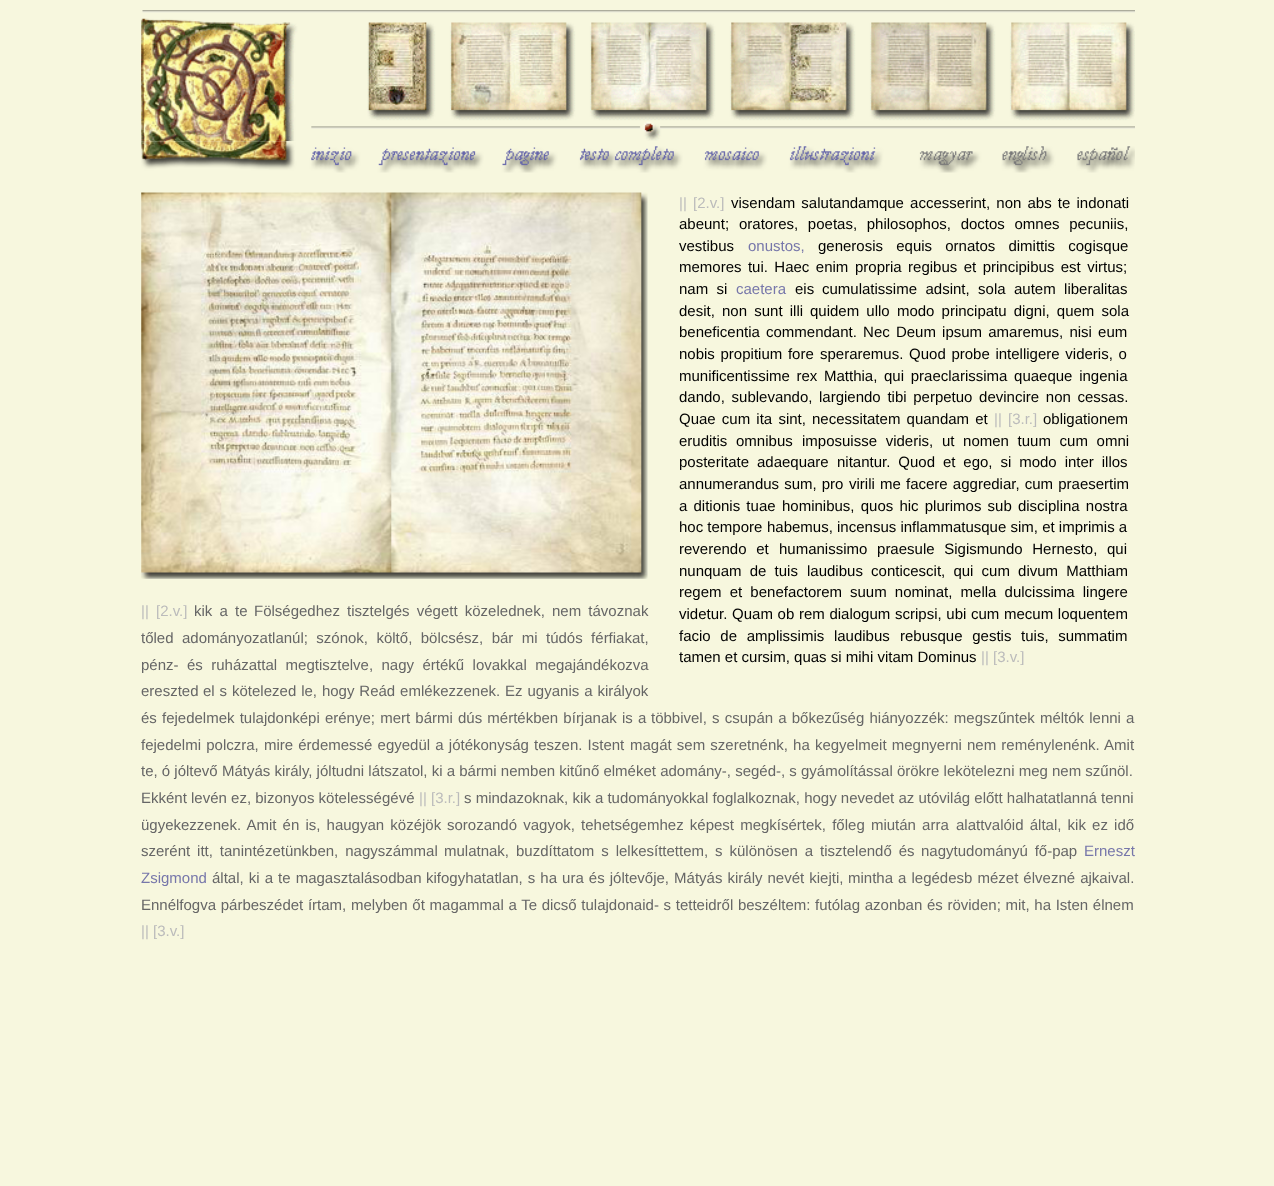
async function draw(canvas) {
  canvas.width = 1274
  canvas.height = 1186
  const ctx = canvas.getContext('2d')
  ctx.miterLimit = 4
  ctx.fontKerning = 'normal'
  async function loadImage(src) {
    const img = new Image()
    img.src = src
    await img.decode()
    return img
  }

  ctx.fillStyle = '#f7f7de'
  ctx.fillRect(0, 0, 1274, 1186)
  ctx.drawImage(await loadImage('image0.png'), 141, 10, 994, 132)
  ctx.drawImage(await loadImage('image1.png'), 141, 141, 994, 32)
  ctx.drawImage(await loadImage('image2.png'), 141, 192, 507, 387)
  ctx.wordSpacing = '2px'
  ctx.font = '15px Liberation Sans'
  ctx.fillStyle = '#bbb'
  ctx.fillText('|| [2.v.]', 679, 208)
  ctx.fillStyle = '#000'
  ctx.fillText('visendam salutandamque accesserint, non abs te indonati', 731, 208)
  ctx.wordSpacing = '0px'
  ctx.fillText('abeunt;', 679, 229)
  ctx.wordSpacing = '5.5px'
  ctx.fillText('oratores, poetas, philosophos, doctos omnes pecuniis,', 739, 229)
  ctx.wordSpacing = '0px'
  ctx.fillText('vestibus', 679, 251)
  ctx.fillStyle = '#77a'
  ctx.fillText('onustos,', 748, 251)
  ctx.wordSpacing = '9px'
  ctx.fillStyle = '#000'
  ctx.fillText('generosis equis ornatos dimittis cogisque', 818, 251)
  ctx.wordSpacing = '2.25px'
  ctx.fillText('memores tui. Haec enim', 679, 272)
  ctx.fillText('propria regibus et principibus est virtus;', 855, 272)
  ctx.wordSpacing = '4.25px'
  ctx.fillText('nam si', 679, 294)
  ctx.wordSpacing = '0px'
  ctx.fillStyle = '#77a'
  ctx.fillText('caetera', 736, 294)
  ctx.fillStyle = '#000'
  ctx.fillText('eis', 795, 294)
  ctx.wordSpacing = '4.25px'
  ctx.fillText('cumulatissime adsint, sola autem liberalitas', 822, 294)
  ctx.wordSpacing = '3px'
  ctx.fillText('desit, non sunt illi', 679, 316)
  ctx.fillText('quidem ullo modo principatu digni, quem sola', 810, 316)
  ctx.wordSpacing = '0px'
  ctx.fillText('beneficentia', 679, 337)
  ctx.wordSpacing = '2px'
  ctx.fillText('commendant. Nec Deum ipsum amaremus, nisi eum', 766, 337)
  ctx.wordSpacing = '1.5px'
  ctx.fillText('nobis propitium fore', 679, 359)
  ctx.fillText('speraremus. Quod probe intelligere videris, o', 820, 359)
  ctx.wordSpacing = '2.5px'
  ctx.fillText('munificentissime rex', 679, 381)
  ctx.fillText('Matthia, qui praeclarissima quaeque ingenia', 824, 381)
  ctx.fillText('dando, sublevando,', 679, 402)
  ctx.fillText('largiendo tibi perpetuo devincire non cessas.', 819, 402)
  ctx.wordSpacing = '2px'
  ctx.fillText('Quae cum ita sint,', 679, 424)
  ctx.fillText('necessitatem quandam et', 812, 424)
  ctx.fillStyle = '#bbb'
  ctx.fillText('|| [3.r.]', 994, 424)
  ctx.wordSpacing = '0px'
  ctx.fillStyle = '#000'
  ctx.fillText('obligationem', 1043, 424)
  ctx.wordSpacing = '4.5px'
  ctx.fillText('eruditis omnibus', 679, 446)
  ctx.fillText('imposuisse videris, ut nomen tuum cum omni', 802, 446)
  ctx.wordSpacing = '3.75px'
  ctx.fillText('posteritate adaequare', 679, 467)
  ctx.fillText('nitantur. Quod et ego, si modo inter illos', 837, 467)
  ctx.wordSpacing = '0.9px'
  ctx.fillText('annumerandus sum, pro', 679, 489)
  ctx.wordSpacing = '1px'
  ctx.fillText('virili me facere aggrediar, cum praesertim', 849, 489)
  ctx.wordSpacing = '2px'
  ctx.fillText('a ditionis tuae', 679, 511)
  ctx.fillText('hominibus, quos hic plurimos sub disciplina nostra', 782, 511)
  ctx.wordSpacing = '0px'
  ctx.fillText('hoc tempore', 679, 532)
  ctx.fillText('habemus, incensus inflammatusque sim, et imprimis a', 767, 532)
  ctx.wordSpacing = '5.5px'
  ctx.fillText('reverendo et', 679, 554)
  ctx.fillText('humanissimo praesule Sigismundo Hernesto, qui', 779, 554)
  ctx.wordSpacing = '4px'
  ctx.fillText('nunquam de tuis', 679, 576)
  ctx.fillText('laudibus conticescit, qui cum divum Matthiam', 807, 576)
  ctx.fillText('regem et benefactorem', 679, 597)
  ctx.fillText('suum nominat, mella dulcissima lingere', 850, 597)
  ctx.wordSpacing = '0.5px'
  ctx.fillText('videtur. Quam ob rem dialogum', 679, 619)
  ctx.fillText('scripsi, ubi cum mecum loquentem', 895, 619)
  ctx.wordSpacing = '5.5px'
  ctx.fillText('facio de amplissimis laudibus', 679, 641)
  ctx.fillText('rebusque gestis tuis, summatim', 900, 641)
  ctx.wordSpacing = '0px'
  ctx.fillText('tamen et cursim, quas si mihi vitam Dominus', 679, 662)
  ctx.fillStyle = '#bbb'
  ctx.fillText('|| [3.v.]', 981, 662)
  ctx.wordSpacing = '3px'
  ctx.fillText('|| [2.v.]', 141, 616)
  ctx.fillStyle = '#666'
  ctx.fillText('kik a te', 194, 616)
  ctx.fillText('Fölségedhez tisztelgés végett közelednek, nem távoznak', 254, 616)
  ctx.wordSpacing = '0px'
  ctx.fillText('tőled', 141, 643)
  ctx.wordSpacing = '4.25px'
  ctx.fillText('adományozatlanúl; szónok, költő, bölcsész, bár mi túdós férfiakat,', 182, 643)
  ctx.wordSpacing = '0px'
  ctx.fillText('pénz-', 141, 670)
  ctx.wordSpacing = '4.25px'
  ctx.fillText('és ruházattal megtisztelve, nagy értékű lovakkal megajándékozva', 187, 670)
  ctx.wordSpacing = '0px'
  ctx.fillText('ereszted', 141, 696)
  ctx.wordSpacing = '0.75px'
  ctx.fillText('el s kötelezed le, hogy Reád emlékezzenek. Ez ugyanis a királyok', 203, 696)
  ctx.wordSpacing = '0px'
  ctx.fillText('és', 141, 723)
  ctx.wordSpacing = '1px'
  ctx.fillText('fejedelmek tulajdonképi erénye; mert bármi dús mértékben bírjanak is a', 162, 723)
  ctx.fillText('többivel, s csupán a bőkezűség hiányozzék: megszűntek méltók lenni a', 651, 723)
  ctx.fillText('fejedelmi polczra, mire érdemessé egyedül a jótékonyság teszen. Istent', 141, 750)
  ctx.fillText('magát sem szeretnénk, ha kegyelmeit megnyerni nem reménylenénk. Amit', 630, 750)
  ctx.wordSpacing = '0px'
  ctx.fillText('te, ó jóltevő Mátyás király, jóltudni látszatol, ki a bármi nemben kitűnő elméket adomány-, segéd-, s gyámolítással örökre lekötelezni meg nem szűnöl.', 141, 776)
  ctx.fillText('Ekként levén ez, bizonyos kötelességévé', 141, 803)
  ctx.fillStyle = '#bbb'
  ctx.fillText('|| [3.r.]', 419, 803)
  ctx.fillStyle = '#666'
  ctx.fillText('s mindazoknak, kik a tudományokkal foglalkoznak, hogy nevedet az utóvilág előtt halhatatlanná tenni', 464, 803)
  ctx.wordSpacing = '2px'
  ctx.fillText('ügyekezzenek. Amit én is, haugyan közéjök', 141, 830)
  ctx.fillText('sorozandó vagyok, tehetségemhez képest megkísértek, főleg miután arra', 447, 830)
  ctx.fillText('alattvalóid által, kik ez idő', 956, 830)
  ctx.wordSpacing = '2.75px'
  ctx.fillText('szerént itt, tanintézetünkben, nagyszámmal', 141, 856)
  ctx.fillText('mulatnak, buzdíttatom s lelkesíttettem, s különösen a tisztelendő és', 444, 856)
  ctx.fillText('nagytudományú fő-pap', 921, 856)
  ctx.wordSpacing = '0px'
  ctx.fillStyle = '#77a'
  ctx.fillText('Erneszt', 1084, 856)
  ctx.fillText('Zsigmond', 141, 883)
  ctx.wordSpacing = '0.9px'
  ctx.fillStyle = '#666'
  ctx.fillText('által, ki a te magasztalásodban', 212, 883)
  ctx.fillText('kifogyhatatlan, s ha ura és jóltevője, Mátyás király nevét kiejti,', 426, 883)
  ctx.fillText('mintha a legédesb mézet élvezné ajkaival.', 848, 883)
  ctx.wordSpacing = '0.5px'
  ctx.fillText('Ennélfogva párbeszédet írtam,', 141, 910)
  ctx.fillText('melyben őt magammal a Te dicső tulajdonaid- s tetteidről beszéltem:', 351, 910)
  ctx.fillText('futólag azonban és röviden; mit, ha Isten élnem', 815, 910)
  ctx.wordSpacing = '0px'
  ctx.fillStyle = '#bbb'
  ctx.fillText('|| [3.v.]', 141, 936)
}

draw(document.querySelector('canvas'))
